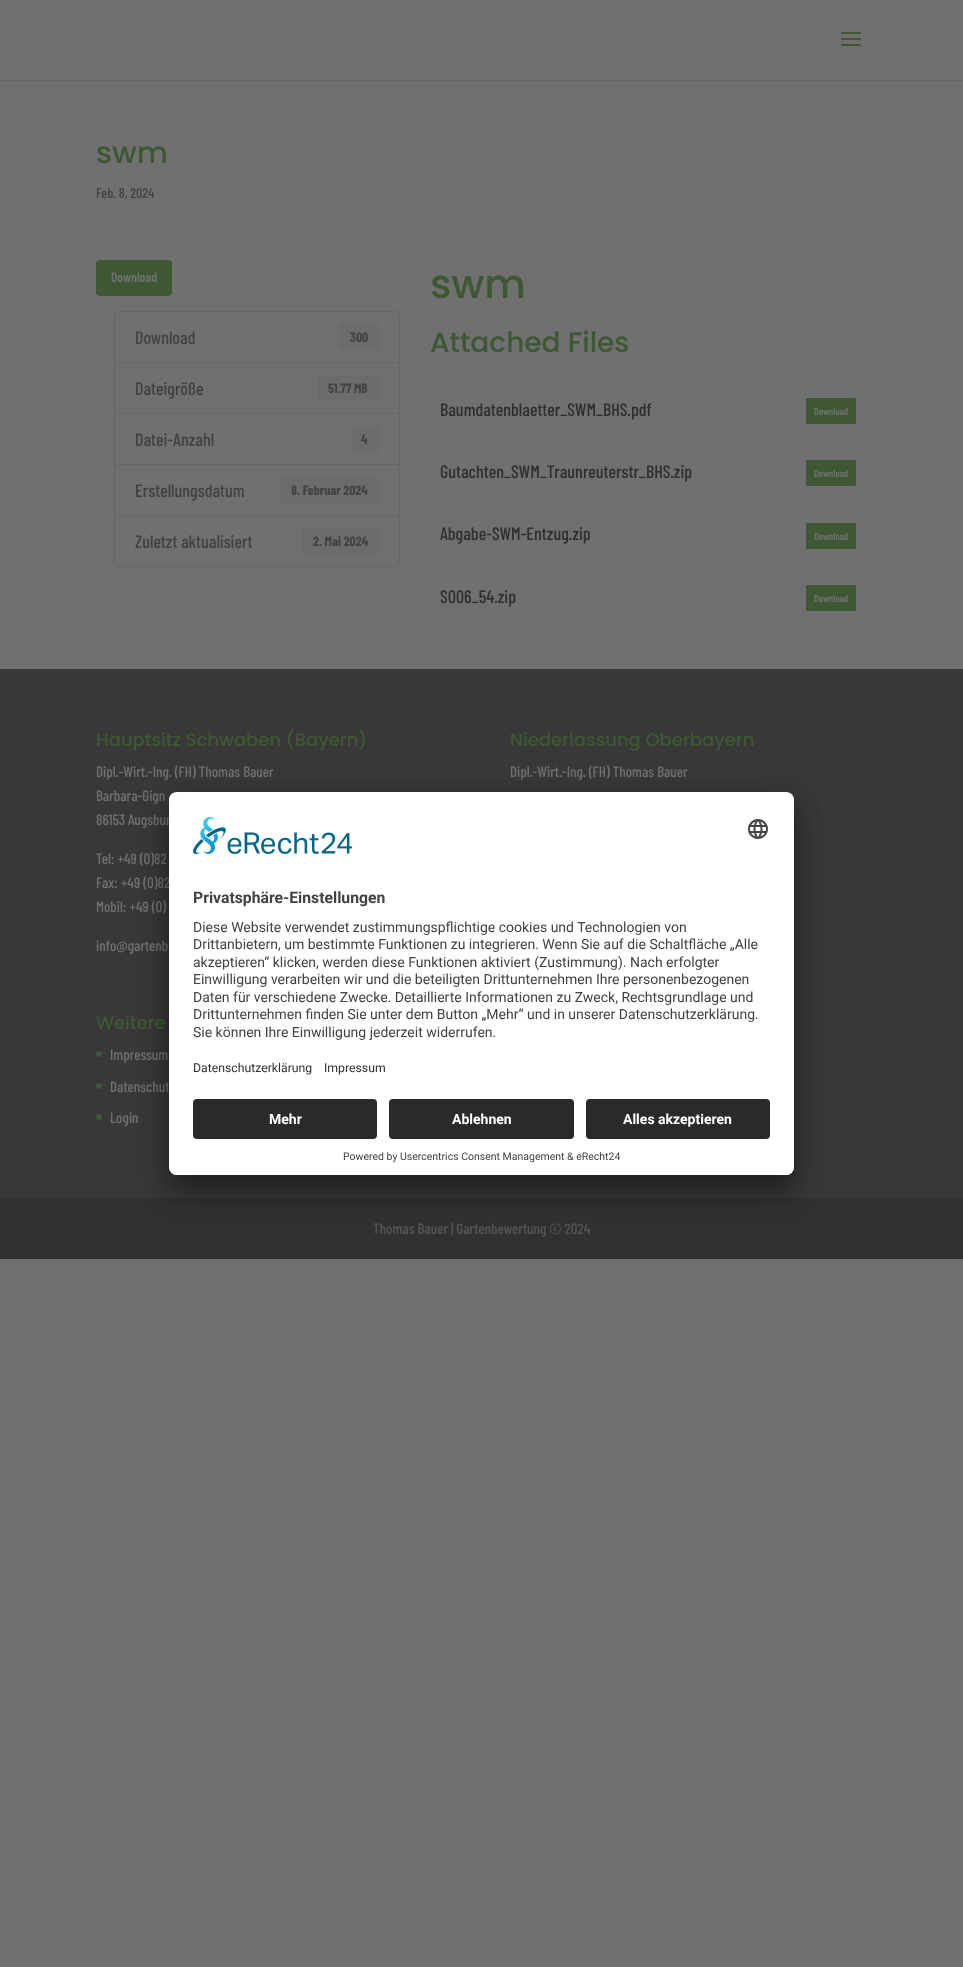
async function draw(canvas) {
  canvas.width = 963
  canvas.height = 1967
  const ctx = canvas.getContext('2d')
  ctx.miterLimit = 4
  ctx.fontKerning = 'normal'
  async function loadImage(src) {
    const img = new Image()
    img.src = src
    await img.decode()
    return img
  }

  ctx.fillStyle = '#707070'
  ctx.fillRect(0, 0, 963, 1967)
  ctx.fillStyle = '#696969'
  ctx.fillRect(0, 80, 963, 1)
  ctx.drawImage(await loadImage('image0.png'), 841, 32, 20, 14)
  ctx.font = '500 30px Poppins'
  ctx.fillStyle = '#3d5833'
  ctx.fillText('swm', 96, 163)
  ctx.font = '500 14px Barlow Condensed'
  ctx.fillStyle = '#424242'
  ctx.fillText('Feb. 8, 2024', 96, 198)
  ctx.fillStyle = '#3d5833'
  ctx.beginPath()
  ctx.roundRect(96, 260, 76, 36, 4)
  ctx.fill()
  ctx.font = '600 13.5px Barlow Condensed'
  ctx.fillStyle = '#707070'
  ctx.fillText('Download', 111, 282)
  ctx.beginPath()
  ctx.roundRect(114.5, 311.5, 285, 51, [3.5, 3.5, 0, 0])
  ctx.strokeStyle = '#686868'
  ctx.stroke()
  ctx.font = '500 18px Barlow Condensed'
  ctx.fillStyle = '#424242'
  ctx.fillText('Download', 135, 344)
  ctx.fillStyle = '#6c6c6c'
  ctx.beginPath()
  ctx.roundRect(339, 324, 40, 26, 3)
  ctx.fill()
  ctx.font = 'bold 13.5px Barlow Condensed'
  ctx.fillStyle = '#424242'
  ctx.fillText('300', 350, 342)
  ctx.strokeRect(114.5, 362.5, 285, 51)
  ctx.font = '500 18px Barlow Condensed'
  ctx.fillText('Dateigröße', 135, 395)
  ctx.fillStyle = '#6c6c6c'
  ctx.beginPath()
  ctx.roundRect(318, 375, 61, 26, 3)
  ctx.fill()
  ctx.font = 'bold 13.5px Barlow Condensed'
  ctx.fillStyle = '#424242'
  ctx.fillText('51.77 MB', 328, 393)
  ctx.strokeRect(114.5, 413.5, 285, 51)
  ctx.font = '500 18px Barlow Condensed'
  ctx.fillText('Datei-Anzahl', 135, 446)
  ctx.fillStyle = '#6c6c6c'
  ctx.beginPath()
  ctx.roundRect(351, 426, 28, 26, 3)
  ctx.fill()
  ctx.font = 'bold 13.5px Barlow Condensed'
  ctx.fillStyle = '#424242'
  ctx.fillText('4', 361, 444)
  ctx.strokeRect(114.5, 464.5, 285, 51)
  ctx.font = '500 18px Barlow Condensed'
  ctx.fillText('Erstellungsdatum', 135, 497)
  ctx.fillStyle = '#6c6c6c'
  ctx.beginPath()
  ctx.roundRect(280, 477, 99, 26, 3)
  ctx.fill()
  ctx.font = 'bold 13.5px Barlow Condensed'
  ctx.fillStyle = '#424242'
  ctx.fillText('8. Februar 2024', 291, 495)
  ctx.fillStyle = '#707070'
  ctx.beginPath()
  ctx.roundRect(114.5, 515.5, 285, 51, [0, 0, 3.5, 3.5])
  ctx.fill()
  ctx.stroke()
  ctx.font = '500 18px Barlow Condensed'
  ctx.fillStyle = '#424242'
  ctx.fillText('Zuletzt aktualisiert', 135, 548)
  ctx.fillStyle = '#6c6c6c'
  ctx.beginPath()
  ctx.roundRect(302, 528, 77, 26, 3)
  ctx.fill()
  ctx.font = 'bold 13.5px Barlow Condensed'
  ctx.fillStyle = '#424242'
  ctx.fillText('2. Mai 2024', 313, 546)
  ctx.font = '500 40px Poppins'
  ctx.fillStyle = '#3d5833'
  ctx.fillText('swm', 430, 298)
  ctx.font = '500 28px Poppins'
  ctx.fillText('Attached Files', 430, 352)
  ctx.font = '500 18px Barlow Condensed'
  ctx.fillStyle = '#2e2f30'
  ctx.fillText('Baumdatenblaetter_SWM_BHS.pdf', 440, 416)
  ctx.fillStyle = '#3d5833'
  ctx.beginPath()
  ctx.roundRect(806, 398, 50, 26, 1.5)
  ctx.fill()
  ctx.font = '600 10px Barlow Condensed'
  ctx.fillStyle = '#707070'
  ctx.fillText('Download', 814, 415)
  ctx.font = '500 18px Barlow Condensed'
  ctx.fillStyle = '#2e2f30'
  ctx.fillText('Gutachten_SWM_Traunreuterstr_BHS.zip', 440, 478)
  ctx.fillStyle = '#3d5833'
  ctx.beginPath()
  ctx.roundRect(806, 460, 50, 26, 1.5)
  ctx.fill()
  ctx.font = '600 10px Barlow Condensed'
  ctx.fillStyle = '#707070'
  ctx.fillText('Download', 814, 477)
  ctx.font = '500 18px Barlow Condensed'
  ctx.fillStyle = '#2e2f30'
  ctx.fillText('Abgabe-SWM-Entzug.zip', 440, 540)
  ctx.fillStyle = '#3d5833'
  ctx.beginPath()
  ctx.roundRect(806, 523, 50, 26, 1.5)
  ctx.fill()
  ctx.font = '600 10px Barlow Condensed'
  ctx.fillStyle = '#707070'
  ctx.fillText('Download', 814, 540)
  ctx.font = '500 18px Barlow Condensed'
  ctx.fillStyle = '#2e2f30'
  ctx.fillText('SO06_54.zip', 440, 603)
  ctx.fillStyle = '#3d5833'
  ctx.beginPath()
  ctx.roundRect(806, 585, 50, 26, 1.5)
  ctx.fill()
  ctx.font = '600 10px Barlow Condensed'
  ctx.fillStyle = '#707070'
  ctx.fillText('Download', 814, 602)
  ctx.fillStyle = '#383838'
  ctx.fillRect(0, 669, 963, 529)
  ctx.font = '500 18px Poppins'
  ctx.fillStyle = '#3d5833'
  ctx.fillText('Hauptsitz Schwaben (Bayern)', 96, 746)
  ctx.font = '500 15px Barlow Condensed'
  ctx.fillStyle = '#707070'
  ctx.fillText('Dipl.-Wirt.-Ing. (FH) Thomas Bauer', 96, 777)
  ctx.fillText('Barbara-Gign', 96, 801)
  ctx.fillText('86153 Augsbur', 96, 825)
  ctx.fillText('Tel: +49 (0)82', 96, 864)
  ctx.fillText('Fax: +49 (0)82', 96, 888)
  ctx.fillText('Mobil: +49 (0)', 96, 912)
  ctx.fillText('info@gartenb', 96, 951)
  ctx.font = '500 18px Poppins'
  ctx.fillStyle = '#3d5833'
  ctx.fillText('Niederlassung Oberbayern', 510, 746)
  ctx.font = '500 15px Barlow Condensed'
  ctx.fillStyle = '#707070'
  ctx.fillText('Dipl.-Wirt.-Ing. (FH) Thomas Bauer', 510, 777)
  ctx.font = '500 18px Poppins'
  ctx.fillStyle = '#3d5833'
  ctx.fillText('Weitere', 96, 1029)
  ctx.beginPath()
  ctx.arc(99, 1054, 3, 0, 2 * Math.PI)
  ctx.fill()
  ctx.font = '500 15px Barlow Condensed'
  ctx.fillStyle = '#707070'
  ctx.fillText('Impressum', 110, 1060)
  ctx.fillStyle = '#3d5833'
  ctx.beginPath()
  ctx.arc(99, 1086, 3, 0, 2 * Math.PI)
  ctx.fill()
  ctx.fillStyle = '#707070'
  ctx.fillText('Datenschut', 110, 1092)
  ctx.fillStyle = '#3d5833'
  ctx.beginPath()
  ctx.arc(99, 1117, 3, 0, 2 * Math.PI)
  ctx.fill()
  ctx.fillStyle = '#707070'
  ctx.fillText('Login', 110, 1123)
  ctx.fillStyle = '#313131'
  ctx.fillRect(0, 1198, 963, 61)
  ctx.fillStyle = '#555'
  ctx.fillText('Thomas Bauer | Gartenbewertung © 2024', 373, 1234)
  ctx.fillStyle = '#0000004d'
  ctx.filter = 'blur(14px)'
  ctx.beginPath()
  ctx.roundRect(169, 812, 625, 383, 8)
  ctx.fill()
  ctx.filter = 'none'
  ctx.fillStyle = '#00000038'
  ctx.filter = 'blur(13px)'
  ctx.beginPath()
  ctx.roundRect(169, 797, 625, 383, 8)
  ctx.fill()
  ctx.filter = 'none'
  ctx.fillStyle = '#fff'
  ctx.beginPath()
  ctx.roundRect(169, 792, 625, 383, 8)
  ctx.fill()
  ctx.save()
  ctx.beginPath()
  ctx.roundRect(169, 792, 625, 383, 8)
  ctx.clip()
  ctx.beginPath()
  ctx.roundRect(169, 792, 625, 299, [8, 8, 0, 0])
  ctx.clip()
  ctx.fillRect(169, 793, 625, 298)
  ctx.restore()
  ctx.drawImage(await loadImage('image1.png'), 193, 817, 160, 37)
  ctx.drawImage(await loadImage('image2.png'), 748, 819, 20, 20)
  ctx.font = 'bold 15.75px Roboto'
  ctx.fillStyle = '#424242'
  ctx.fillText('Privatsphäre-Einstellungen', 193, 903)
  ctx.font = '14px Roboto'
  ctx.fillText('Diese Website verwendet zustimmungspflichtige cookies und Technologien von', 193, 932)
  ctx.fillText('Drittanbietern, um bestimmte Funktionen zu integrieren. Wenn Sie auf die Schaltfläche „Alle', 193, 949)
  ctx.fillText('akzeptieren“ klicken, werden diese Funktionen aktiviert (Zustimmung). Nach erfolgter', 193, 967)
  ctx.fillText('Einwilligung verarbeiten wir und die beteiligten Drittunternehmen Ihre personenbezogenen', 193, 984)
  ctx.fillText('Daten für verschiedene Zwecke. Detaillierte Informationen zu Zweck, Rechtsgrundlage und', 193, 1002)
  ctx.fillText('Drittunternehmen finden Sie unter dem Button „Mehr“ und in unserer Datenschutzerklärung.', 193, 1019)
  ctx.fillText('Sie können Ihre Einwilligung jederzeit widerrufen.', 193, 1037)
  ctx.font = '12.25px Roboto'
  ctx.fillStyle = '#2e2f30'
  ctx.fillText('Datenschutzerklärung', 193, 1072)
  ctx.fillText('Impressum', 324, 1072)
  ctx.fillStyle = '#fff'
  ctx.beginPath()
  ctx.roundRect(169, 1091, 625, 84, [0, 0, 8, 8])
  ctx.fill()
  ctx.fillStyle = '#292a2b'
  ctx.beginPath()
  ctx.roundRect(193, 1099, 184, 40, 4)
  ctx.fill()
  ctx.font = 'bold 14px Roboto'
  ctx.fillStyle = '#fff'
  ctx.fillText('Mehr', 269, 1124)
  ctx.fillStyle = '#292a2b'
  ctx.beginPath()
  ctx.roundRect(389, 1099, 185, 40, 4)
  ctx.fill()
  ctx.fillStyle = '#fff'
  ctx.fillText('Ablehnen', 452, 1124)
  ctx.fillStyle = '#292a2b'
  ctx.beginPath()
  ctx.roundRect(586, 1099, 184, 40, 4)
  ctx.fill()
  ctx.fillStyle = '#fff'
  ctx.fillText('Alles akzeptieren', 623, 1124)
  ctx.font = '10.5px Roboto'
  ctx.fillStyle = '#424242'
  ctx.fillText('Powered by Usercentrics Consent Management & eRecht24', 343, 1160)
}

draw(document.querySelector('canvas'))
